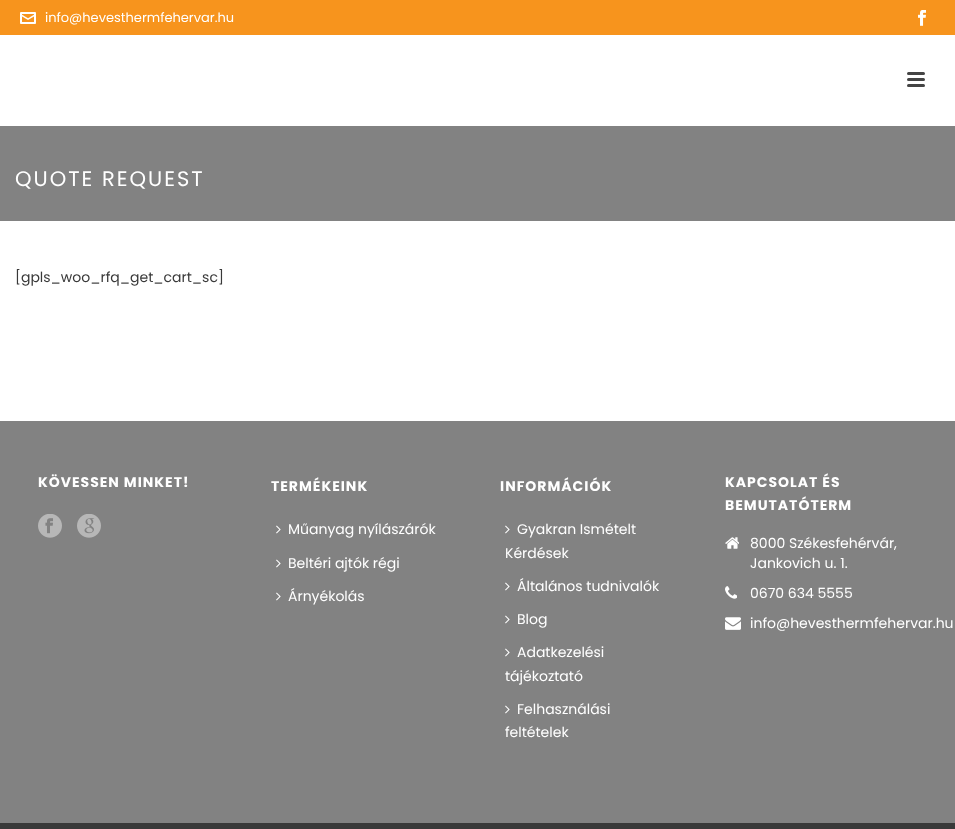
async function draw(canvas) {
  canvas.width = 955
  canvas.height = 829
  const ctx = canvas.getContext('2d')
  ctx.miterLimit = 4
  ctx.fontKerning = 'normal'
  async function loadImage(src) {
    const img = new Image()
    img.src = src
    await img.decode()
    return img
  }

  ctx.fillStyle = '#fff'
  ctx.fillRect(0, 0, 955, 829)
  ctx.fillStyle = '#828282'
  ctx.fillRect(0, 126, 955, 95)
  ctx.fillStyle = '#f7941d'
  ctx.fillRect(0, 0, 955, 35)
  ctx.drawImage(await loadImage('image0.png'), 20, 12, 16, 12)
  ctx.font = '13px Poppins'
  ctx.fillStyle = '#fff'
  ctx.fillText('info@hevesthermfehervar.hu', 45, 22)
  ctx.drawImage(await loadImage('image1.png'), 918, 10, 8, 16)
  ctx.fillStyle = '#444'
  ctx.beginPath()
  ctx.roundRect(907, 72, 18, 3, 1.5)
  ctx.fill()
  ctx.beginPath()
  ctx.roundRect(907, 78, 18, 3, 1.5)
  ctx.fill()
  ctx.beginPath()
  ctx.roundRect(907, 84, 18, 3, 1.5)
  ctx.fill()
  ctx.letterSpacing = '2px'
  ctx.font = '21px Poppins'
  ctx.fillStyle = '#fff'
  ctx.fillText('QUOTE REQUEST', 15, 186)
  ctx.letterSpacing = '0px'
  ctx.font = '14px Poppins'
  ctx.fillStyle = '#393939'
  ctx.fillText('[gpls_woo_rfq_get_cart_sc]', 15, 282)
  ctx.fillStyle = '#828282'
  ctx.fillRect(0, 421, 955, 402)
  ctx.letterSpacing = '1px'
  ctx.font = 'bold 14px Poppins'
  ctx.fillStyle = '#fff'
  ctx.fillText('KÖVESSEN MINKET!', 38, 487)
  ctx.drawImage(await loadImage('image2.png'), 38, 514, 24, 24)
  ctx.drawImage(await loadImage('image3.png'), 77, 514, 24, 24)
  ctx.fillText('TERMÉKEINK', 271, 491)
  ctx.drawImage(await loadImage('image4.png'), 276, 525, 5, 9)
  ctx.letterSpacing = '0px'
  ctx.font = '14px Poppins'
  ctx.fillText('Műanyag nyílászárók', 288, 534)
  ctx.drawImage(await loadImage('image4.png'), 276, 559, 5, 9)
  ctx.fillText('Beltéri ajtók régi', 288, 568)
  ctx.drawImage(await loadImage('image4.png'), 276, 592, 5, 9)
  ctx.fillText('Árnyékolás', 288, 601)
  ctx.letterSpacing = '1px'
  ctx.font = 'bold 14px Poppins'
  ctx.fillText('INFORMÁCIÓK', 500, 491)
  ctx.drawImage(await loadImage('image4.png'), 505, 525, 5, 9)
  ctx.letterSpacing = '0px'
  ctx.font = '14px Poppins'
  ctx.fillText('Gyakran Ismételt', 517, 534)
  ctx.fillText('Kérdések', 505, 558)
  ctx.drawImage(await loadImage('image4.png'), 505, 582, 5, 9)
  ctx.fillText('Általános tudnivalók', 517, 591)
  ctx.drawImage(await loadImage('image4.png'), 505, 615, 5, 9)
  ctx.fillText('Blog', 517, 624)
  ctx.drawImage(await loadImage('image4.png'), 505, 648, 5, 9)
  ctx.fillText('Adatkezelési', 517, 657)
  ctx.fillText('tájékoztató', 505, 681)
  ctx.drawImage(await loadImage('image4.png'), 505, 705, 5, 9)
  ctx.fillText('Felhasználási', 517, 714)
  ctx.fillText('feltételek', 505, 737)
  ctx.letterSpacing = '1px'
  ctx.font = 'bold 14px Poppins'
  ctx.fillText('KAPCSOLAT ÉS', 725, 487)
  ctx.fillText('BEMUTATÓTERM', 725, 510)
  ctx.drawImage(await loadImage('image5.png'), 725, 537, 14, 12)
  ctx.letterSpacing = '0px'
  ctx.font = '14px Poppins'
  ctx.fillText('8000 Székesfehérvár,', 750, 548)
  ctx.fillText('Jankovich u. 1.', 750, 568)
  ctx.drawImage(await loadImage('image6.png'), 725, 586, 12, 13)
  ctx.fillText('0670 634 5555', 750, 598)
  ctx.drawImage(await loadImage('image7.png'), 725, 617, 16, 13)
  ctx.fillText('info@hevesthermfehervar.hu', 750, 628)
  ctx.fillStyle = '#393939'
  ctx.fillRect(0, 823, 955, 6)
}

draw(document.querySelector('canvas'))
